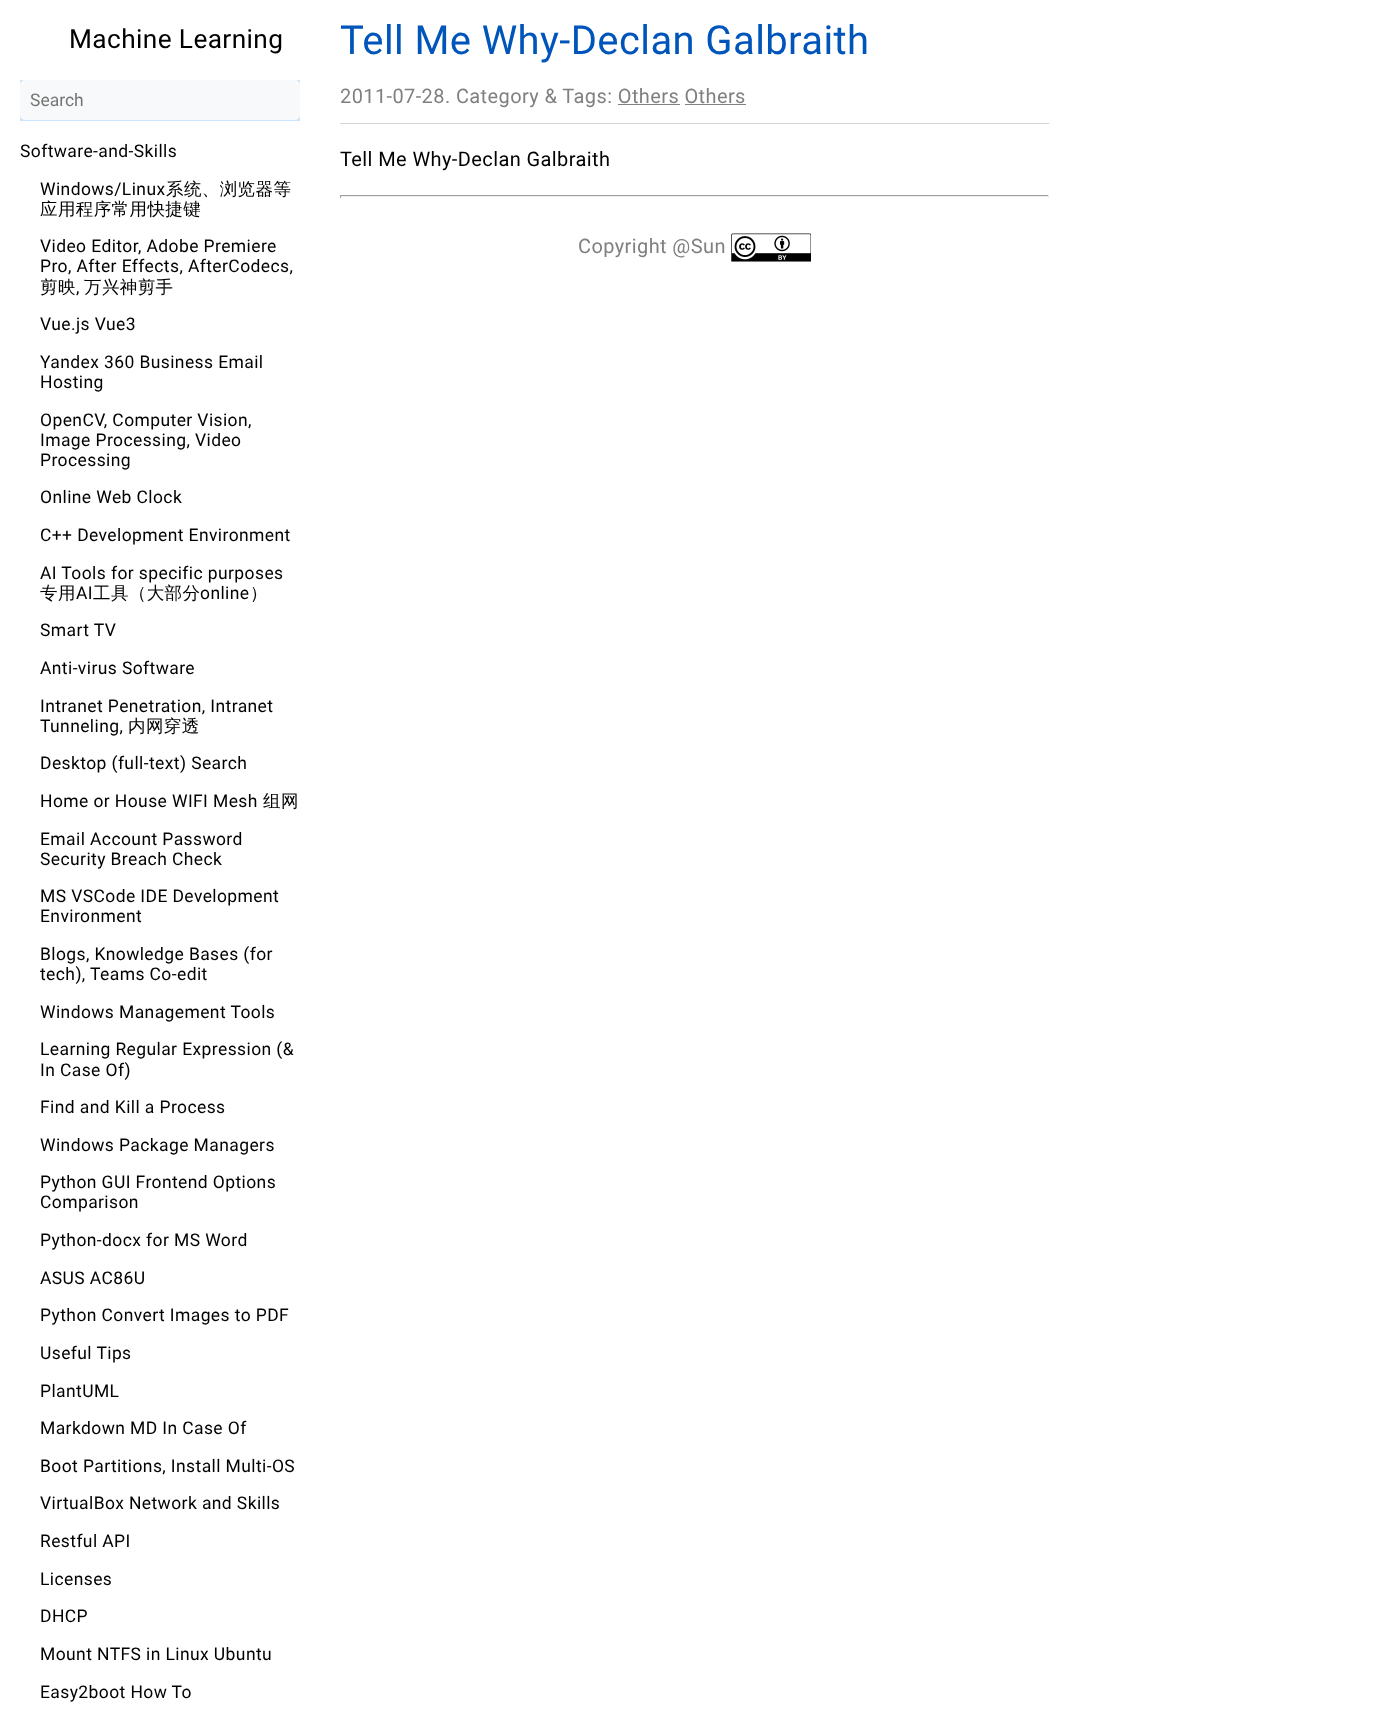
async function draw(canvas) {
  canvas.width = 1388
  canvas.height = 1719
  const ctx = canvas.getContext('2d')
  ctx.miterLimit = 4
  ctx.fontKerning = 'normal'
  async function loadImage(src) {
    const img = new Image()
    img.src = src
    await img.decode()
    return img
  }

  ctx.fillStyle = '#fff'
  ctx.fillRect(0, 0, 1388, 1719)
  ctx.letterSpacing = '0.4px'
  ctx.font = '26.25px Roboto'
  ctx.fillStyle = '#000'
  ctx.fillText('Machine Learning', 69, 48)
  ctx.fillStyle = '#cce4fd'
  ctx.fillRect(20, 80, 280, 41)
  ctx.fillStyle = '#f8f9fa'
  ctx.beginPath()
  ctx.roundRect(20, 80, 280, 40, 5)
  ctx.fill()
  ctx.letterSpacing = '0px'
  ctx.font = '17.5px Roboto'
  ctx.fillStyle = '#757575'
  ctx.fillText('Search', 30, 106)
  ctx.letterSpacing = '0.4px'
  ctx.fillStyle = '#000'
  ctx.fillText('Software-and-Skills', 20, 157)
  ctx.fillText('Windows/Linux', 40, 195)
  ctx.font = '500 17.5px WenQuanYi Zen Hei'
  ctx.fillText('系统、浏览器等', 166, 195)
  ctx.fillText('应用程序常用快捷键', 40, 215)
  ctx.font = '17.5px Roboto'
  ctx.fillText('Video Editor, Adobe Premiere', 40, 252)
  ctx.fillText('Pro, After Effects, AfterCodecs,', 40, 272)
  ctx.font = '500 17.5px WenQuanYi Zen Hei'
  ctx.fillText('剪映', 40, 293)
  ctx.font = '17.5px Roboto'
  ctx.fillText(',', 76, 293)
  ctx.font = '500 17.5px WenQuanYi Zen Hei'
  ctx.fillText('万兴神剪手', 84, 293)
  ctx.font = '17.5px Roboto'
  ctx.fillText('Vue.js Vue3', 40, 330)
  ctx.fillText('Yandex 360 Business Email', 40, 368)
  ctx.fillText('Hosting', 40, 388)
  ctx.fillText('OpenCV, Computer Vision,', 40, 426)
  ctx.fillText('Image Processing, Video', 40, 446)
  ctx.fillText('Processing', 40, 466)
  ctx.fillText('Online Web Clock', 40, 503)
  ctx.fillText('C++ Development Environment', 40, 541)
  ctx.fillText('AI Tools for specific purposes', 40, 579)
  ctx.font = '500 17.5px WenQuanYi Zen Hei'
  ctx.fillText('专用', 40, 599)
  ctx.font = '17.5px Roboto'
  ctx.fillText('AI', 76, 599)
  ctx.font = '500 17.5px WenQuanYi Zen Hei'
  ctx.fillText('工具（大部分', 93, 599)
  ctx.font = '17.5px Roboto'
  ctx.fillText('online', 200, 599)
  ctx.font = '500 17.5px WenQuanYi Zen Hei'
  ctx.fillText('）', 250, 599)
  ctx.font = '17.5px Roboto'
  ctx.fillText('Smart TV', 40, 636)
  ctx.fillText('Anti-virus Software', 40, 674)
  ctx.fillText('Intranet Penetration, Intranet', 40, 712)
  ctx.fillText('Tunneling,', 40, 732)
  ctx.font = '500 17.5px WenQuanYi Zen Hei'
  ctx.fillText('内网穿透', 128, 732)
  ctx.font = '17.5px Roboto'
  ctx.fillText('Desktop (full-text) Search', 40, 769)
  ctx.fillText('Home or House WIFI Mesh', 40, 807)
  ctx.font = '500 17.5px WenQuanYi Zen Hei'
  ctx.fillText('组网', 263, 807)
  ctx.font = '17.5px Roboto'
  ctx.fillText('Email Account Password', 40, 845)
  ctx.fillText('Security Breach Check', 40, 865)
  ctx.fillText('MS VSCode IDE Development', 40, 902)
  ctx.fillText('Environment', 40, 922)
  ctx.fillText('Blogs, Knowledge Bases (for', 40, 960)
  ctx.fillText('tech), Teams Co-edit', 40, 980)
  ctx.fillText('Windows Management Tools', 40, 1018)
  ctx.fillText('Learning Regular Expression (&', 40, 1055)
  ctx.fillText('In Case Of)', 40, 1076)
  ctx.fillText('Find and Kill a Process', 40, 1113)
  ctx.fillText('Windows Package Managers', 40, 1151)
  ctx.fillText('Python GUI Frontend Options', 40, 1188)
  ctx.fillText('Comparison', 40, 1208)
  ctx.fillText('Python-docx for MS Word', 40, 1246)
  ctx.fillText('ASUS AC86U', 40, 1284)
  ctx.fillText('Python Convert Images to PDF', 40, 1321)
  ctx.fillText('Useful Tips', 40, 1359)
  ctx.fillText('PlantUML', 40, 1397)
  ctx.fillText('Markdown MD In Case Of', 40, 1434)
  ctx.fillText('Boot Partitions, Install Multi-OS', 40, 1472)
  ctx.fillText('VirtualBox Network and Skills', 40, 1509)
  ctx.fillText('Restful API', 40, 1547)
  ctx.fillText('Licenses', 40, 1585)
  ctx.fillText('DHCP', 40, 1622)
  ctx.fillText('Mount NTFS in Linux Ubuntu', 40, 1660)
  ctx.fillText('Easy2boot How To', 40, 1698)
  ctx.font = '40px Roboto'
  ctx.fillStyle = '#05b'
  ctx.fillText('Tell Me Why-Declan Galbraith', 340, 54)
  ctx.font = '20px Roboto'
  ctx.fillStyle = '#808080'
  ctx.fillText('2011-07-28. Category & Tags: Others Others', 340, 103)
  ctx.fillRect(618, 104, 62, 1)
  ctx.fillRect(685, 104, 61, 1)
  ctx.fillStyle = '#d3d3d3'
  ctx.fillRect(340, 123, 709, 1)
  ctx.fillStyle = '#000'
  ctx.fillText('Tell Me Why-Declan Galbraith', 340, 166)
  ctx.fillStyle = '#9f9f9f'
  ctx.fillRect(340, 195, 709, 1)
  ctx.fillStyle = '#eee'
  ctx.fillRect(1048, 195, 1, 3)
  ctx.fillRect(340, 196, 709, 1)
  ctx.fillStyle = '#9f9f9f'
  ctx.fillRect(340, 195, 1, 3)
  ctx.fillStyle = '#808080'
  ctx.fillText('Copyright @Sun', 578, 253)
  ctx.drawImage(await loadImage('image0.png'), 731, 233, 80, 29)
}

draw(document.querySelector('canvas'))
